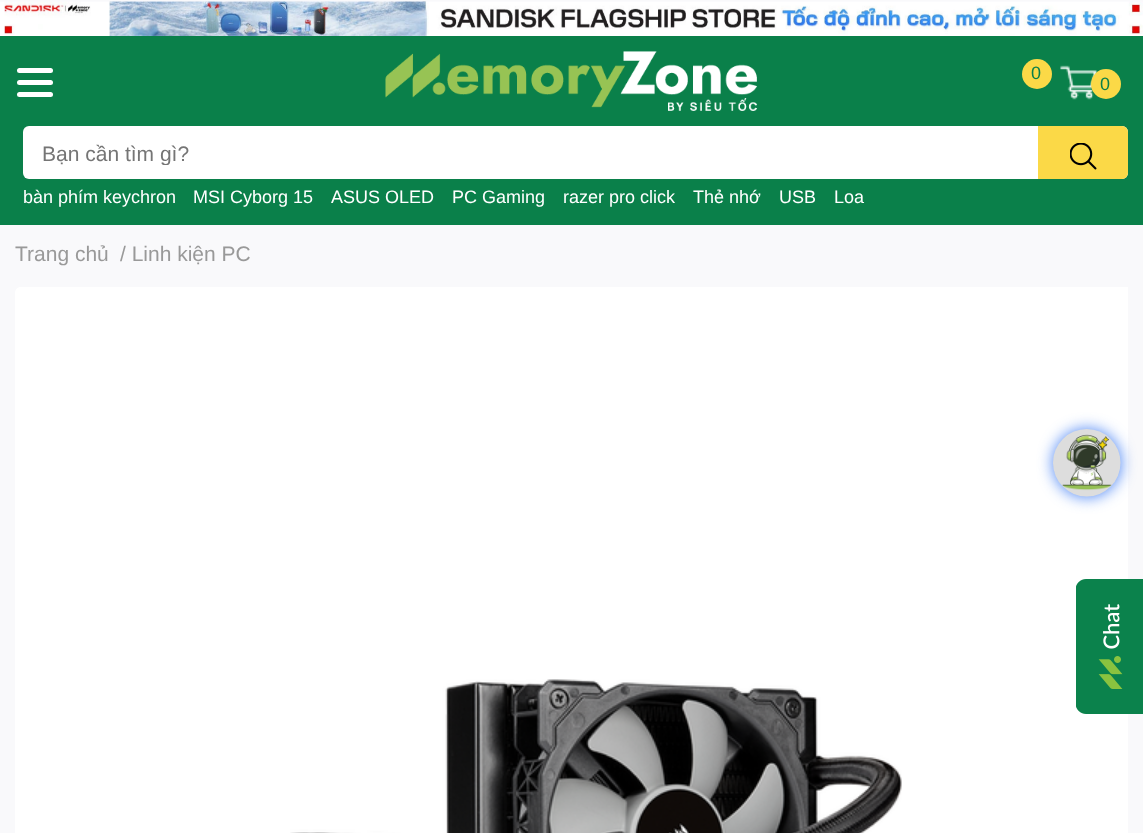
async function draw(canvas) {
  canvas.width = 1143
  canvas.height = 833
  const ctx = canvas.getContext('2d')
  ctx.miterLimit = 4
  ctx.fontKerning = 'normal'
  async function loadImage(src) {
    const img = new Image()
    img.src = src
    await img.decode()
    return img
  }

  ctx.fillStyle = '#f9f9fb'
  ctx.fillRect(0, 0, 1143, 833)
  ctx.drawImage(await loadImage('image0.png'), 0, 1, 1143, 35)
  ctx.fillStyle = '#0a804a'
  ctx.fillRect(0, 36, 1143, 189)
  ctx.fillStyle = '#fff'
  ctx.beginPath()
  ctx.roundRect(17, 68, 36, 5, 2.5)
  ctx.fill()
  ctx.beginPath()
  ctx.roundRect(17, 80, 36, 5, 2.5)
  ctx.fill()
  ctx.beginPath()
  ctx.roundRect(17, 92, 36, 5, 2.5)
  ctx.fill()
  ctx.drawImage(await loadImage('image1.png'), 385, 51, 373, 60)
  ctx.fillStyle = '#fbd947'
  ctx.beginPath()
  ctx.arc(1037, 74, 15, 0, 2 * Math.PI)
  ctx.fill()
  ctx.font = '18px Liberation Sans'
  ctx.fillStyle = '#0a804a'
  ctx.fillText('0', 1031, 79)
  ctx.drawImage(await loadImage('image2.png'), 1060, 65, 37, 35)
  ctx.fillStyle = '#fbd947'
  ctx.beginPath()
  ctx.arc(1106, 84, 15, 0, 2 * Math.PI)
  ctx.fill()
  ctx.fillStyle = '#0a804a'
  ctx.fillText('0', 1100, 90)
  ctx.fillStyle = '#fff'
  ctx.beginPath()
  ctx.roundRect(23, 126, 1105, 53, 6)
  ctx.fill()
  ctx.save()
  ctx.beginPath()
  ctx.rect(42, 140, 989, 25)
  ctx.clip()
  ctx.font = '21px Liberation Sans'
  ctx.fillStyle = '#757575'
  ctx.fillText('Bạn cần tìm gì?', 42, 161)
  ctx.restore()
  ctx.fillStyle = '#fbd947'
  ctx.beginPath()
  ctx.roundRect(1038, 126, 90, 53, [0, 6, 6, 0])
  ctx.fill()
  ctx.drawImage(await loadImage('image3.png'), 1070, 143, 27, 27)
  ctx.fillStyle = '#fff'
  ctx.fillText('bàn phím keychron', 23, 203)
  ctx.fillText('MSI Cyborg 15', 193, 203)
  ctx.fillText('ASUS OLED', 331, 203)
  ctx.fillText('PC Gaming', 452, 203)
  ctx.fillText('razer pro click', 563, 203)
  ctx.fillText('Thẻ nhớ', 693, 203)
  ctx.fillText('USB', 779, 203)
  ctx.fillText('Loa', 834, 203)
  ctx.font = '21px Liberation Sans'
  ctx.fillStyle = '#999'
  ctx.fillText('Trang chủ', 15, 261)
  ctx.fillText('/ Linh kiện PC', 120, 261)
  ctx.fillStyle = '#fff'
  ctx.beginPath()
  ctx.moveTo(21, 287)
  ctx.lineTo(1128, 287)
  ctx.lineTo(1128, 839)
  ctx.lineTo(21, 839)
  ctx.bezierCurveTo(17.5, 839, 15, 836.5, 15, 833)
  ctx.lineTo(15, 293)
  ctx.bezierCurveTo(15, 289.5, 17.5, 287, 21, 287)
  ctx.closePath()
  ctx.fill()
  ctx.drawImage(await loadImage('image4.png'), 290, 679, 612, 154)
  ctx.fillStyle = '#1c64f2cc'
  ctx.filter = 'blur(7.5px)'
  ctx.beginPath()
  ctx.roundRect(1053, 429, 68, 68, 34)
  ctx.fill()
  ctx.filter = 'none'
  ctx.drawImage(await loadImage('image5.png'), 1053, 429, 68, 68)
  ctx.drawImage(await loadImage('image6.png'), 1076, 579, 67, 135)
}

draw(document.querySelector('canvas'))
